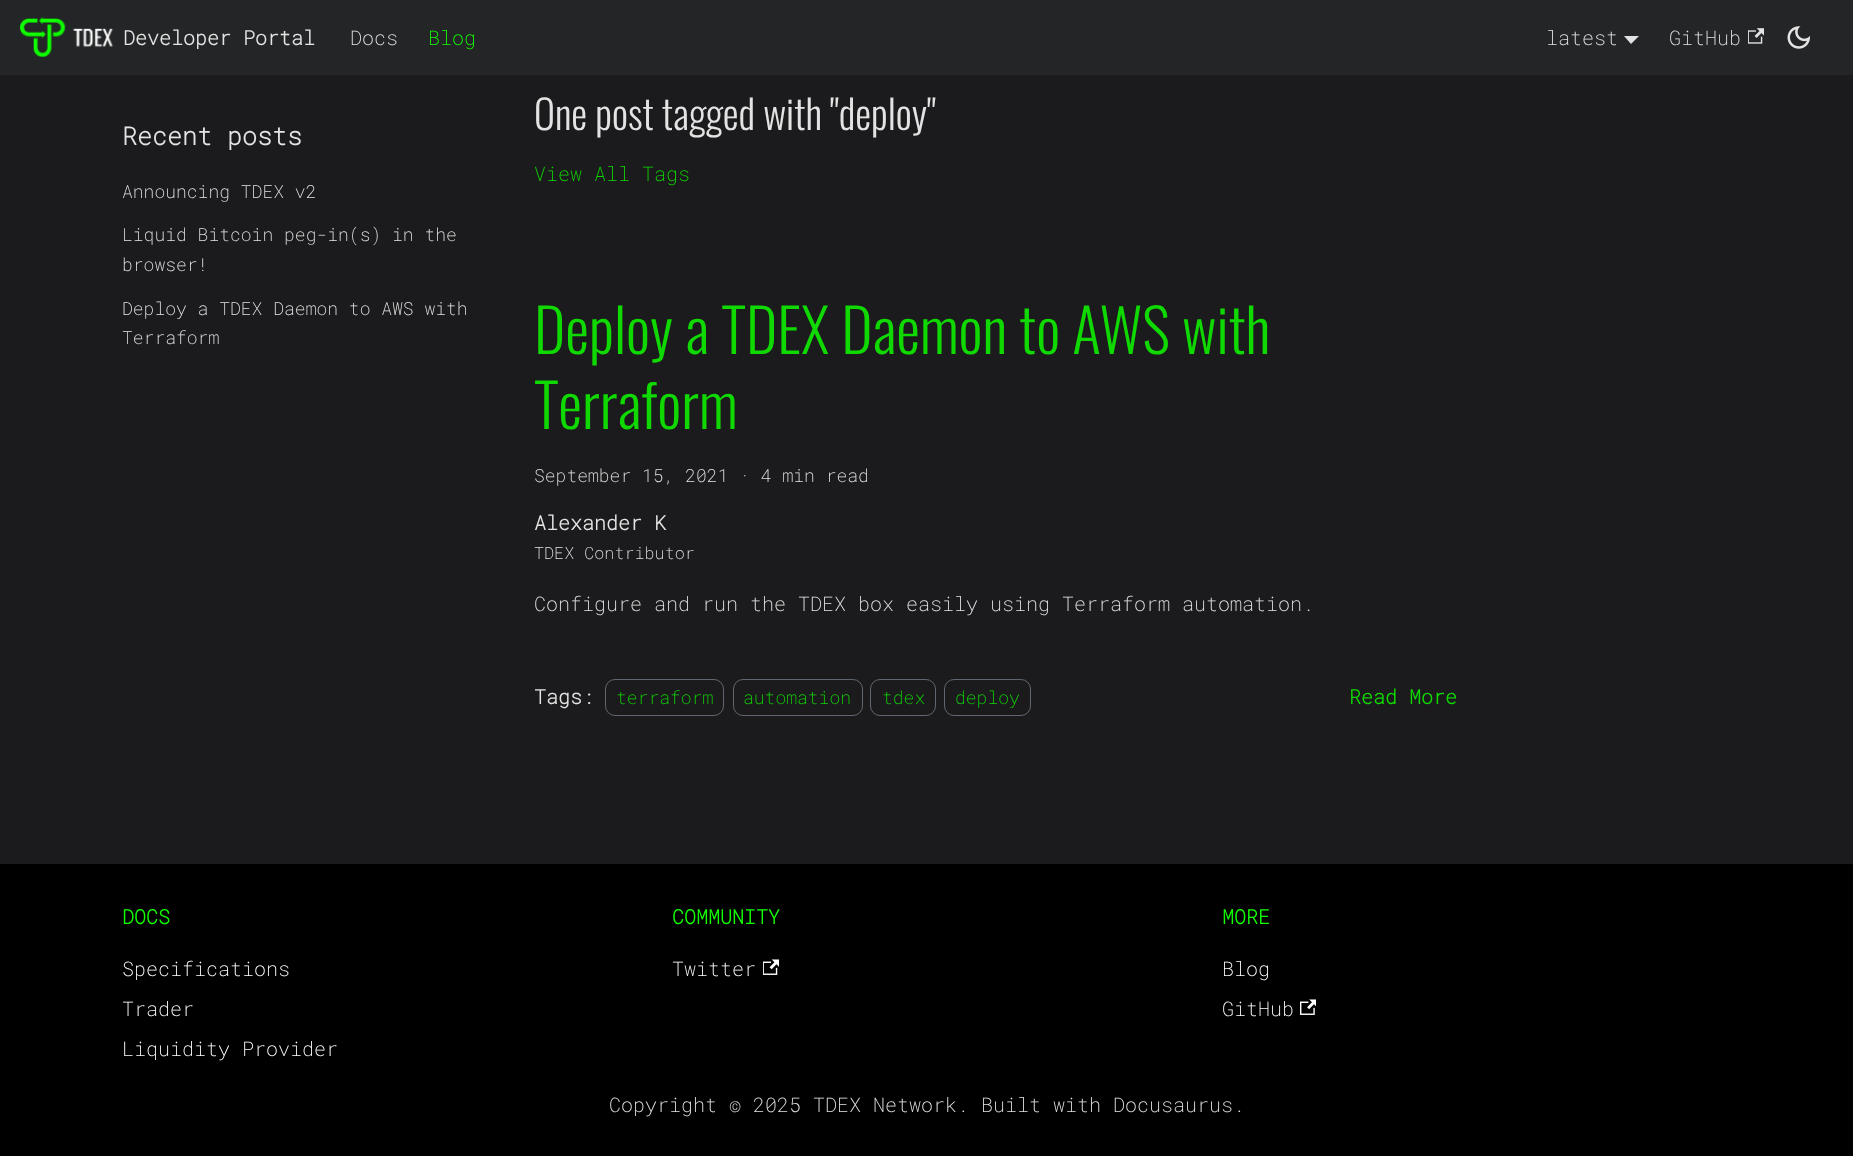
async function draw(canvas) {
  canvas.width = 1853
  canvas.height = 1156
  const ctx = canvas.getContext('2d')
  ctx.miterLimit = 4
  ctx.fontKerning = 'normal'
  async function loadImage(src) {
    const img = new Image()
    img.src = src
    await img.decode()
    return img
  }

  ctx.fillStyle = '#1b1b1d'
  ctx.fillRect(0, 0, 1853, 1156)
  ctx.fillStyle = '#242526'
  ctx.fillRect(0, 0, 1853, 75)
  ctx.drawImage(await loadImage('image0.png'), 20, 17, 93, 40)
  ctx.font = 'bold 20px Roboto Mono'
  ctx.fillStyle = '#e3e3e3'
  ctx.fillText('Developer Portal', 123, 45)
  ctx.font = '200 20px Roboto Mono'
  ctx.fillText('Docs', 350, 45)
  ctx.fillStyle = '#12ff00'
  ctx.fillText('Blog', 428, 45)
  ctx.fillStyle = '#e3e3e3'
  ctx.fillText('latest', 1546, 45)
  ctx.beginPath()
  ctx.moveTo(1624, 36)
  ctx.lineTo(1639, 36)
  ctx.lineTo(1631, 44)
  ctx.closePath()
  ctx.fill()
  ctx.fillText('GitHub', 1669, 45)
  ctx.drawImage(await loadImage('image1.png'), 1748, 28, 16, 16)
  ctx.drawImage(await loadImage('image2.png'), 1787, 26, 23, 23)
  ctx.font = 'bold 25px Roboto Mono'
  ctx.fillText('Recent posts', 122, 145)
  ctx.font = '200 18px Roboto Mono'
  ctx.fillText('Announcing TDEX v2', 122, 198)
  ctx.fillText('Liquid Bitcoin peg-in(s) in the', 122, 241)
  ctx.fillText('browser!', 122, 271)
  ctx.fillText('Deploy a TDEX Daemon to AWS with', 122, 315)
  ctx.fillText('Terraform', 122, 344)
  ctx.font = '300 40px Oswald'
  ctx.fillText('One post tagged with "deploy"', 534, 130)
  ctx.font = '200 20px Roboto Mono'
  ctx.fillStyle = '#0fd900'
  ctx.fillText('View All Tags', 534, 181)
  ctx.font = '300 60px Oswald'
  ctx.fillText('Deploy a TDEX Daemon to AWS with', 534, 354)
  ctx.fillText('Terraform', 534, 429)
  ctx.font = '200 18px Roboto Mono'
  ctx.fillStyle = '#e3e3e3'
  ctx.fillText('September 15, 2021 · 4 min read', 534, 482)
  ctx.font = 'bold 20px Roboto Mono'
  ctx.fillText('Alexander K', 534, 530)
  ctx.font = '200 16.75px Roboto Mono'
  ctx.fillText('TDEX Contributor', 534, 559)
  ctx.font = '200 20px Roboto Mono'
  ctx.fillText('Configure and run the TDEX box easily using Terraform automation.', 534, 611)
  ctx.font = 'bold 20px Roboto Mono'
  ctx.fillText('Tags:', 534, 704)
  ctx.beginPath()
  ctx.roundRect(605.5, 679.5, 118, 36, 9.5)
  ctx.strokeStyle = '#606770'
  ctx.stroke()
  ctx.font = '200 18px Roboto Mono'
  ctx.fillStyle = '#0fd900'
  ctx.fillText('terraform', 616, 704)
  ctx.beginPath()
  ctx.roundRect(733.5, 679.5, 129, 36, 9.5)
  ctx.stroke()
  ctx.fillText('automation', 743, 704)
  ctx.beginPath()
  ctx.roundRect(870.5, 679.5, 65, 36, 9.5)
  ctx.stroke()
  ctx.fillText('tdex', 882, 704)
  ctx.beginPath()
  ctx.roundRect(944.5, 679.5, 86, 36, 9.5)
  ctx.stroke()
  ctx.fillText('deploy', 955, 704)
  ctx.font = 'bold 20px Roboto Mono'
  ctx.fillText('Read More', 1349, 704)
  ctx.fillStyle = '#000'
  ctx.fillRect(0, 864, 1853, 292)
  ctx.fillStyle = '#12ff00'
  ctx.fillText('DOCS', 122, 924)
  ctx.font = '200 20px Roboto Mono'
  ctx.fillStyle = '#fff'
  ctx.fillText('Specifications', 122, 976)
  ctx.fillText('Trader', 122, 1016)
  ctx.fillText('Liquidity Provider', 122, 1056)
  ctx.font = 'bold 20px Roboto Mono'
  ctx.fillStyle = '#12ff00'
  ctx.fillText('COMMUNITY', 672, 924)
  ctx.font = '200 20px Roboto Mono'
  ctx.fillStyle = '#fff'
  ctx.fillText('Twitter', 672, 976)
  ctx.drawImage(await loadImage('image3.png'), 763, 959, 16, 16)
  ctx.font = 'bold 20px Roboto Mono'
  ctx.fillStyle = '#12ff00'
  ctx.fillText('MORE', 1222, 924)
  ctx.font = '200 20px Roboto Mono'
  ctx.fillStyle = '#fff'
  ctx.fillText('Blog', 1222, 976)
  ctx.fillText('GitHub', 1222, 1016)
  ctx.drawImage(await loadImage('image4.png'), 1300, 999, 16, 16)
  ctx.fillStyle = '#e3e3e3'
  ctx.fillText('Copyright © 2025 TDEX Network. Built with Docusaurus.', 609, 1112)
}

draw(document.querySelector('canvas'))
